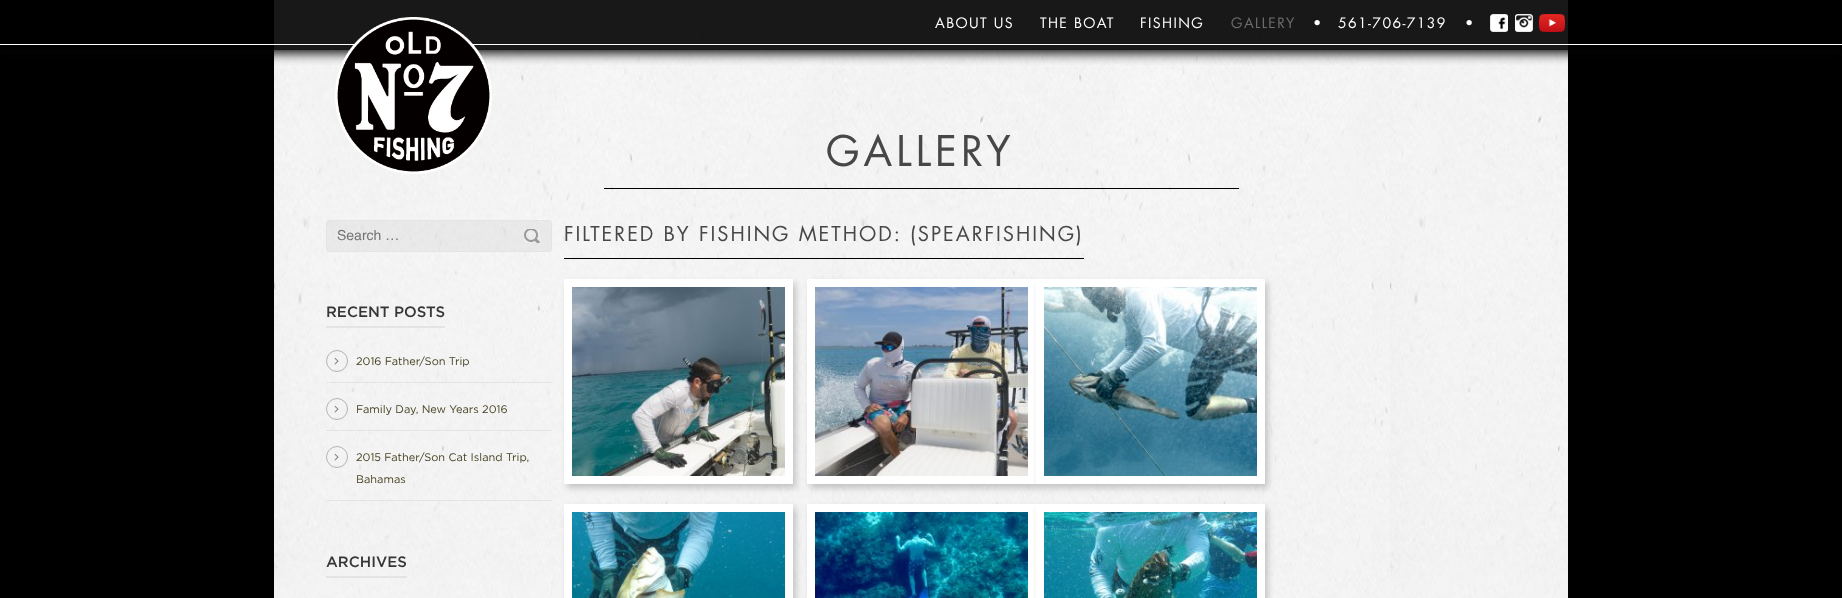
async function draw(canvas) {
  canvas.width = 1842
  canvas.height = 598
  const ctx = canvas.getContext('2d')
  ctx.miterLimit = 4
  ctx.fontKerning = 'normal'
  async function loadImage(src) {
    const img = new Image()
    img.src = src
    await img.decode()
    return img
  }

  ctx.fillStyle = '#000'
  ctx.fillRect(0, 0, 1842, 598)
  ctx.drawImage(await loadImage('image4.png'), 274, 0, 1294, 598)
  ctx.save()
  ctx.beginPath()
  ctx.rect(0, 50, 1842, 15)
  ctx.clip()
  ctx.fillStyle = '#020303'
  ctx.filter = 'blur(6px)'
  ctx.beginPath()
  ctx.rect(0, 1, 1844, 52)
  ctx.fill()
  ctx.filter = 'none'
  ctx.restore()
  ctx.fillStyle = '#000000e6'
  ctx.fillRect(274, 0, 1294, 50)
  ctx.fillStyle = '#fff'
  ctx.fillRect(0, 44, 1842, 1)
  ctx.drawImage(await loadImage('image0.png'), 335, 17, 157, 157)
  ctx.letterSpacing = '1.4px'
  ctx.font = '14px Futura'
  ctx.fillText('ABOUT US', 935, 28)
  ctx.fillText('THE BOAT', 1040, 28)
  ctx.fillText('FISHING', 1140, 28)
  ctx.fillStyle = '#6d6d6e'
  ctx.fillText('GALLERY', 1231, 28)
  ctx.fillStyle = '#fff'
  ctx.fillText('•', 1313, 28)
  ctx.fillText('561-706-7139', 1338, 28)
  ctx.fillText('•', 1465, 28)
  ctx.drawImage(await loadImage('image1.png'), 1490, 14, 18, 18)
  ctx.drawImage(await loadImage('image2.png'), 1515, 14, 18, 18)
  ctx.drawImage(await loadImage('image3.png'), 1539, 14, 26, 18)
  ctx.fillStyle = '#000'
  ctx.fillRect(604, 188, 635, 1)
  ctx.letterSpacing = '4px'
  ctx.font = '41px Futura'
  ctx.fillStyle = '#474747'
  ctx.fillText('GALLERY', 826, 166)
  ctx.fillStyle = '#000'
  ctx.fillRect(564, 258, 520, 1)
  ctx.letterSpacing = '2px'
  ctx.font = '20px Futura'
  ctx.fillStyle = '#474747'
  ctx.fillText('FILTERED BY FISHING METHOD: (SPEARFISHING)', 564, 241)
  ctx.fillStyle = '#03030333'
  ctx.filter = 'blur(3px)'
  ctx.beginPath()
  ctx.rect(567, 283, 229, 205)
  ctx.fill()
  ctx.filter = 'none'
  ctx.strokeStyle = '#fff'
  ctx.lineWidth = 8
  ctx.strokeRect(568, 283, 221, 197)
  ctx.drawImage(await loadImage('image5.png'), 572, 287, 213, 189)
  ctx.filter = 'blur(3px)'
  ctx.beginPath()
  ctx.rect(810, 283, 229, 205)
  ctx.fill()
  ctx.filter = 'none'
  ctx.strokeRect(811, 283, 221, 197)
  ctx.drawImage(await loadImage('image6.png'), 815, 287, 213, 189)
  ctx.filter = 'blur(3px)'
  ctx.beginPath()
  ctx.rect(1039, 283, 229, 205)
  ctx.fill()
  ctx.filter = 'none'
  ctx.strokeRect(1040, 283, 221, 197)
  ctx.drawImage(await loadImage('image7.png'), 1044, 287, 213, 189)
  ctx.filter = 'blur(3px)'
  ctx.beginPath()
  ctx.rect(567, 508, 229, 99)
  ctx.fill()
  ctx.filter = 'none'
  ctx.strokeRect(568, 508, 221, 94)
  ctx.drawImage(await loadImage('image8.png'), 572, 512, 213, 86)
  ctx.filter = 'blur(3px)'
  ctx.beginPath()
  ctx.rect(810, 508, 229, 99)
  ctx.fill()
  ctx.filter = 'none'
  ctx.strokeRect(811, 508, 221, 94)
  ctx.drawImage(await loadImage('image9.png'), 815, 512, 213, 86)
  ctx.filter = 'blur(3px)'
  ctx.beginPath()
  ctx.rect(1039, 508, 229, 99)
  ctx.fill()
  ctx.filter = 'none'
  ctx.strokeRect(1040, 508, 221, 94)
  ctx.drawImage(await loadImage('image10.png'), 1044, 512, 213, 86)
  ctx.fillStyle = '#bebebe33'
  ctx.beginPath()
  ctx.roundRect(326.5, 220.5, 225, 31, 2.5)
  ctx.fill()
  ctx.strokeStyle = '#e4e4e4'
  ctx.lineWidth = 1
  ctx.stroke()
  ctx.letterSpacing = '0px'
  ctx.font = '14px Helvetica'
  ctx.fillStyle = '#757575'
  ctx.fillText('Search …', 337, 240)
  ctx.drawImage(await loadImage('image11.png'), 524, 229, 16, 14)
  ctx.fillStyle = '#e4e4e4'
  ctx.fillRect(326, 326, 119, 2)
  ctx.font = '500 15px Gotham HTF'
  ctx.fillStyle = '#363636'
  ctx.fillText('RECENT POSTS', 326, 317)
  ctx.fillStyle = '#e4e4e4'
  ctx.fillRect(326, 382, 226, 1)
  ctx.drawImage(await loadImage('image12.png'), 326, 350, 22, 22)
  ctx.font = '11px Gotham'
  ctx.fillStyle = '#474222'
  ctx.fillText('2016 Father/Son Trip', 356, 365)
  ctx.fillStyle = '#e4e4e4'
  ctx.fillRect(326, 430, 226, 1)
  ctx.drawImage(await loadImage('image12.png'), 326, 398, 22, 22)
  ctx.fillStyle = '#474222'
  ctx.fillText('Family Day, New Years 2016', 356, 413)
  ctx.fillStyle = '#e4e4e4'
  ctx.fillRect(326, 500, 226, 1)
  ctx.drawImage(await loadImage('image12.png'), 326, 446, 22, 22)
  ctx.fillStyle = '#474222'
  ctx.fillText('2015 Father/Son Cat Island Trip,', 356, 461)
  ctx.fillText('Bahamas', 356, 483)
  ctx.fillStyle = '#e4e4e4'
  ctx.fillRect(326, 576, 81, 2)
  ctx.font = '500 15px Gotham HTF'
  ctx.fillStyle = '#363636'
  ctx.fillText('ARCHIVES', 326, 567)
}

draw(document.querySelector('canvas'))
